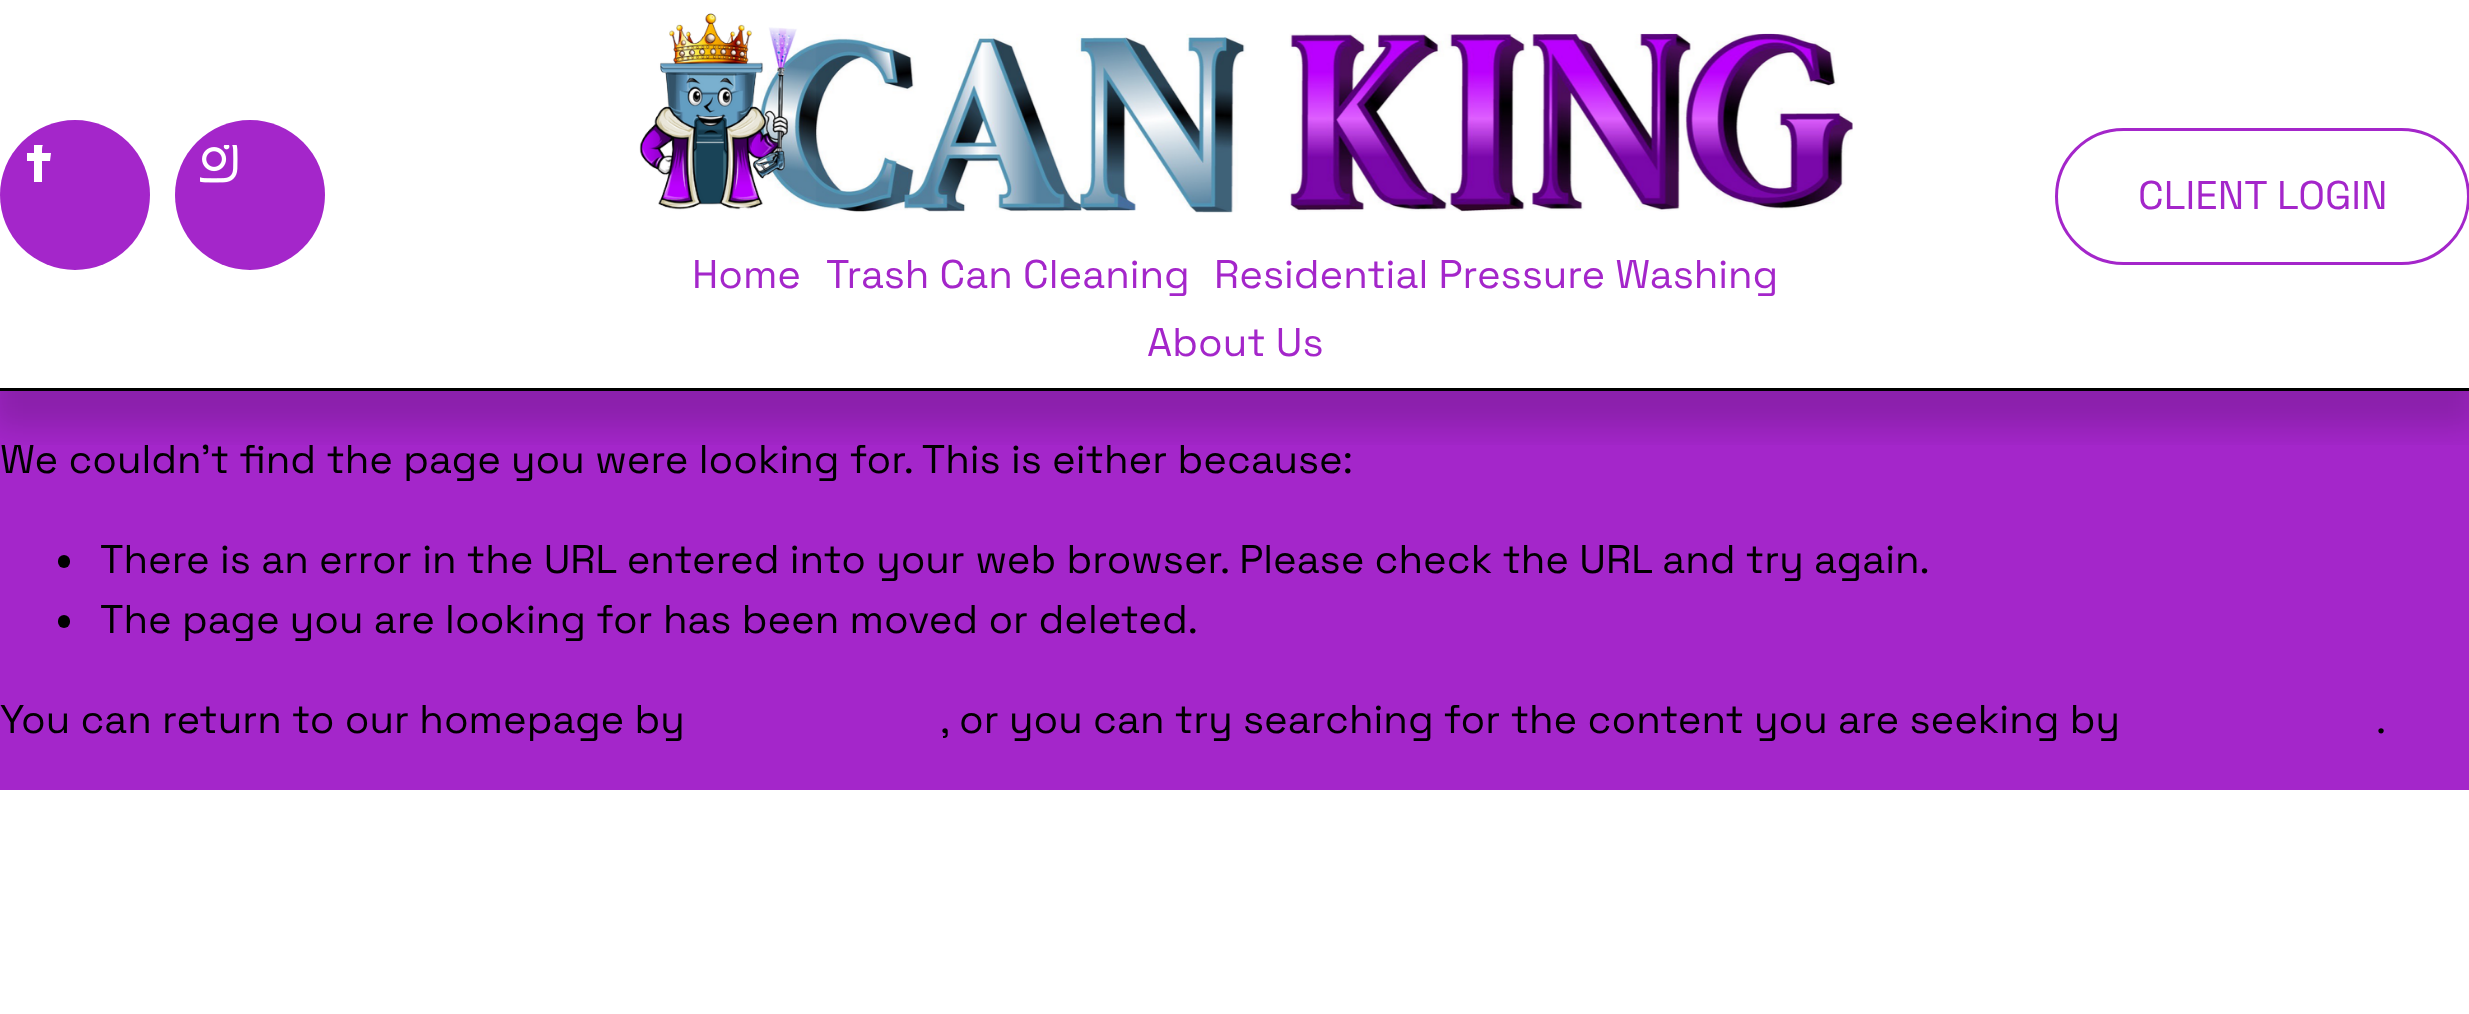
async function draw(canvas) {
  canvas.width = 2469
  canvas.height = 1014
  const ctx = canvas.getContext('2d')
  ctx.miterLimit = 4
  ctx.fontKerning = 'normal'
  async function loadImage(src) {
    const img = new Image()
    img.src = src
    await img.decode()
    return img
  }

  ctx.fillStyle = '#a426ca'
  ctx.fillRect(0, 0, 2469, 1014)
  ctx.fillStyle = '#fff'
  ctx.fillRect(0, 0, 2469, 388)
  ctx.save()
  ctx.beginPath()
  ctx.rect(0, 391, 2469, 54)
  ctx.clip()
  ctx.fillStyle = '#00000026'
  ctx.filter = 'blur(15px)'
  ctx.beginPath()
  ctx.rect(-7, 23, 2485, 405)
  ctx.fill()
  ctx.filter = 'none'
  ctx.restore()
  ctx.fillStyle = '#a426ca'
  ctx.beginPath()
  ctx.arc(75, 195, 75, 0, 2 * Math.PI)
  ctx.fill()
  ctx.save()
  ctx.beginPath()
  ctx.rect(25, 145, 100, 100)
  ctx.clip()
  ctx.fillStyle = '#fff'
  ctx.beginPath()
  ctx.moveTo(42, 182)
  ctx.lineTo(42, 161)
  ctx.lineTo(50, 161)
  ctx.lineTo(51, 153)
  ctx.lineTo(42, 153)
  ctx.bezierCurveTo(42, 144, 42, 143, 51, 143)
  ctx.lineTo(51, 136)
  ctx.bezierCurveTo(44, 135, 35, 136, 34, 144)
  ctx.lineTo(34, 153)
  ctx.lineTo(27, 153)
  ctx.lineTo(27, 161)
  ctx.lineTo(34, 161)
  ctx.lineTo(34, 182)
  ctx.closePath()
  ctx.fill()
  ctx.restore()
  ctx.beginPath()
  ctx.arc(250, 195, 75, 0, 2 * Math.PI)
  ctx.fill()
  ctx.drawImage(await loadImage('image0.png'), 200, 145, 38, 38)
  ctx.beginPath()
  ctx.roundRect(2056.5, 129.5, 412, 134, 67)
  ctx.strokeStyle = '#a426ca'
  ctx.lineWidth = 3
  ctx.stroke()
  ctx.font = '40px Space Grotesk'
  ctx.fillText('CLIENT LOGIN', 2138, 209)
  ctx.drawImage(await loadImage('image1.png'), 639, 13, 1214, 200)
  ctx.fillText('Home', 692, 288)
  ctx.fillText('Trash Can Cleaning', 826, 288)
  ctx.fillText('Residential Pressure Washing', 1214, 288)
  ctx.fillText('About Us', 1147, 356)
  ctx.fillStyle = '#000'
  ctx.fillRect(0, 388, 2469, 3)
  ctx.fillText('We couldn\'t find the page you were looking for. This is either because:', 0, 473)
  ctx.beginPath()
  ctx.roundRect(58, 555, 12, 13, 6)
  ctx.fill()
  ctx.fillText('There is an error in the URL entered into your web browser. Please check the URL and try again.', 100, 573)
  ctx.beginPath()
  ctx.roundRect(58, 615, 12, 13, 6)
  ctx.fill()
  ctx.fillText('The page you are looking for has been moved or deleted.', 100, 633)
  ctx.fillText('You can return to our homepage by', 0, 733)
  ctx.fillText(', or you can try searching for the content you are seeking by', 940, 733)
  ctx.fillText('.', 2376, 733)
  ctx.fillStyle = '#fff'
  ctx.fillRect(0, 790, 2469, 224)
}

draw(document.querySelector('canvas'))
